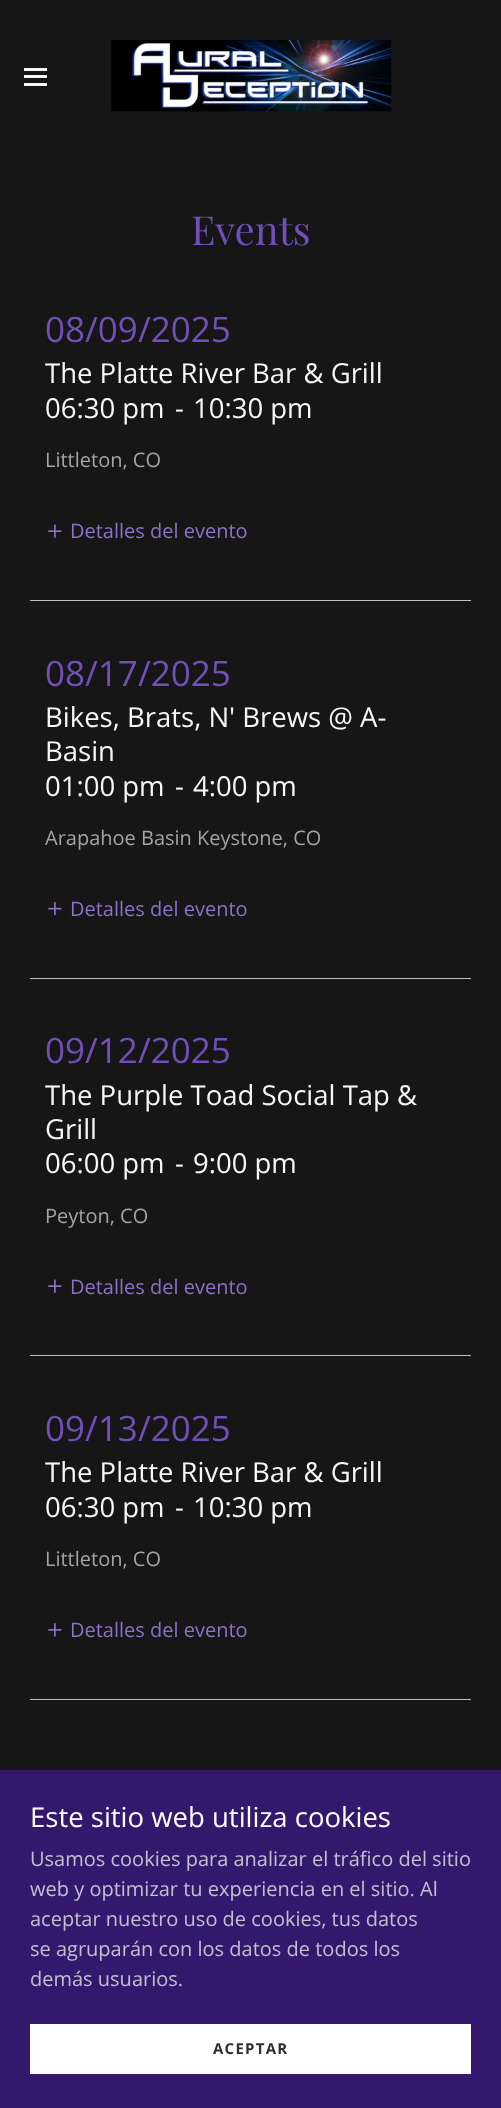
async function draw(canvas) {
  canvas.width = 501
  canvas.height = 2108
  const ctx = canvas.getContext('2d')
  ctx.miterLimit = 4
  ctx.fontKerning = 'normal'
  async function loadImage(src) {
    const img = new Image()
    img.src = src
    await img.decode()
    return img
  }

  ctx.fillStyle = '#161616'
  ctx.fillRect(0, 0, 501, 2108)
  ctx.fillStyle = '#f7f7f7'
  ctx.fillRect(24, 68, 23, 3)
  ctx.fillRect(24, 75, 23, 3)
  ctx.fillRect(24, 83, 23, 3)
  ctx.drawImage(await loadImage('image0.png'), 111, 40, 281, 72)
  ctx.font = '40px Playfair Display'
  ctx.fillStyle = '#714fb8'
  ctx.fillText('Events', 191, 245)
  ctx.fillStyle = '#bfbfbf'
  ctx.fillRect(30, 600, 441, 1)
  ctx.font = '35px Open Sans'
  ctx.fillStyle = '#714fb8'
  ctx.fillText('08/09/2025', 45, 342)
  ctx.font = '27.5px Open Sans'
  ctx.fillStyle = '#f7f7f7'
  ctx.fillText('The Platte River Bar & Grill', 45, 383)
  ctx.fillText('06:30 pm', 45, 418)
  ctx.fillText('-', 175, 418)
  ctx.fillText('10:30 pm', 193, 418)
  ctx.font = '20px Open Sans'
  ctx.fillStyle = '#a4a4a4'
  ctx.fillText('Littleton, CO', 45, 467)
  ctx.drawImage(await loadImage('image1.png'), 48, 524, 14, 14)
  ctx.fillStyle = '#8d71c7'
  ctx.fillText('Detalles del evento', 70, 538)
  ctx.fillStyle = '#bfbfbf'
  ctx.fillRect(30, 978, 441, 1)
  ctx.font = '35px Open Sans'
  ctx.fillStyle = '#714fb8'
  ctx.fillText('08/17/2025', 45, 686)
  ctx.font = '27.5px Open Sans'
  ctx.fillStyle = '#f7f7f7'
  ctx.fillText('Bikes, Brats, N\' Brews @ A-', 45, 727)
  ctx.fillText('Basin', 45, 761)
  ctx.fillText('01:00 pm', 45, 796)
  ctx.fillText('-', 175, 796)
  ctx.fillText('4:00 pm', 193, 796)
  ctx.font = '20px Open Sans'
  ctx.fillStyle = '#a4a4a4'
  ctx.fillText('Arapahoe Basin Keystone, CO', 45, 845)
  ctx.drawImage(await loadImage('image2.png'), 48, 902, 14, 14)
  ctx.fillStyle = '#8d71c7'
  ctx.fillText('Detalles del evento', 70, 916)
  ctx.fillStyle = '#bfbfbf'
  ctx.fillRect(30, 1355, 441, 1)
  ctx.font = '35px Open Sans'
  ctx.fillStyle = '#714fb8'
  ctx.fillText('09/12/2025', 45, 1063)
  ctx.font = '27.5px Open Sans'
  ctx.fillStyle = '#f7f7f7'
  ctx.fillText('The Purple Toad Social Tap &', 45, 1105)
  ctx.fillText('Grill', 45, 1139)
  ctx.fillText('06:00 pm', 45, 1173)
  ctx.fillText('-', 175, 1173)
  ctx.fillText('9:00 pm', 193, 1173)
  ctx.font = '20px Open Sans'
  ctx.fillStyle = '#a4a4a4'
  ctx.fillText('Peyton, CO', 45, 1223)
  ctx.drawImage(await loadImage('image1.png'), 48, 1279, 14, 14)
  ctx.fillStyle = '#8d71c7'
  ctx.fillText('Detalles del evento', 70, 1294)
  ctx.fillStyle = '#bfbfbf'
  ctx.fillRect(30, 1699, 441, 1)
  ctx.font = '35px Open Sans'
  ctx.fillStyle = '#714fb8'
  ctx.fillText('09/13/2025', 45, 1441)
  ctx.font = '27.5px Open Sans'
  ctx.fillStyle = '#f7f7f7'
  ctx.fillText('The Platte River Bar & Grill', 45, 1482)
  ctx.fillText('06:30 pm', 45, 1517)
  ctx.fillText('-', 175, 1517)
  ctx.fillText('10:30 pm', 193, 1517)
  ctx.font = '20px Open Sans'
  ctx.fillStyle = '#a4a4a4'
  ctx.fillText('Littleton, CO', 45, 1566)
  ctx.drawImage(await loadImage('image3.png'), 48, 1623, 14, 14)
  ctx.fillStyle = '#8d71c7'
  ctx.fillText('Detalles del evento', 70, 1637)
  ctx.fillStyle = '#34186e'
  ctx.fillRect(0, 1770, 501, 338)
  ctx.font = '27.5px Open Sans'
  ctx.fillStyle = '#fff'
  ctx.fillText('Este sitio web utiliza cookies', 30, 1827)
  ctx.font = '20px Open Sans'
  ctx.fillStyle = '#c2bfcf'
  ctx.fillText('Usamos cookies para analizar el tráfico del sitio', 30, 1866)
  ctx.fillText('web y optimizar tu experiencia en el sitio. Al', 30, 1896)
  ctx.fillText('aceptar nuestro uso de cookies, tus datos', 30, 1926)
  ctx.fillText('se agruparán con los datos de todos los', 30, 1956)
  ctx.fillText('demás usuarios.', 30, 1986)
  ctx.fillStyle = '#fff'
  ctx.fillRect(30, 2024, 441, 50)
  ctx.letterSpacing = '1.25px'
  ctx.font = 'bold 15px Open Sans'
  ctx.fillStyle = '#303030'
  ctx.fillText('ACEPTAR', 213, 2054)
}

draw(document.querySelector('canvas'))
